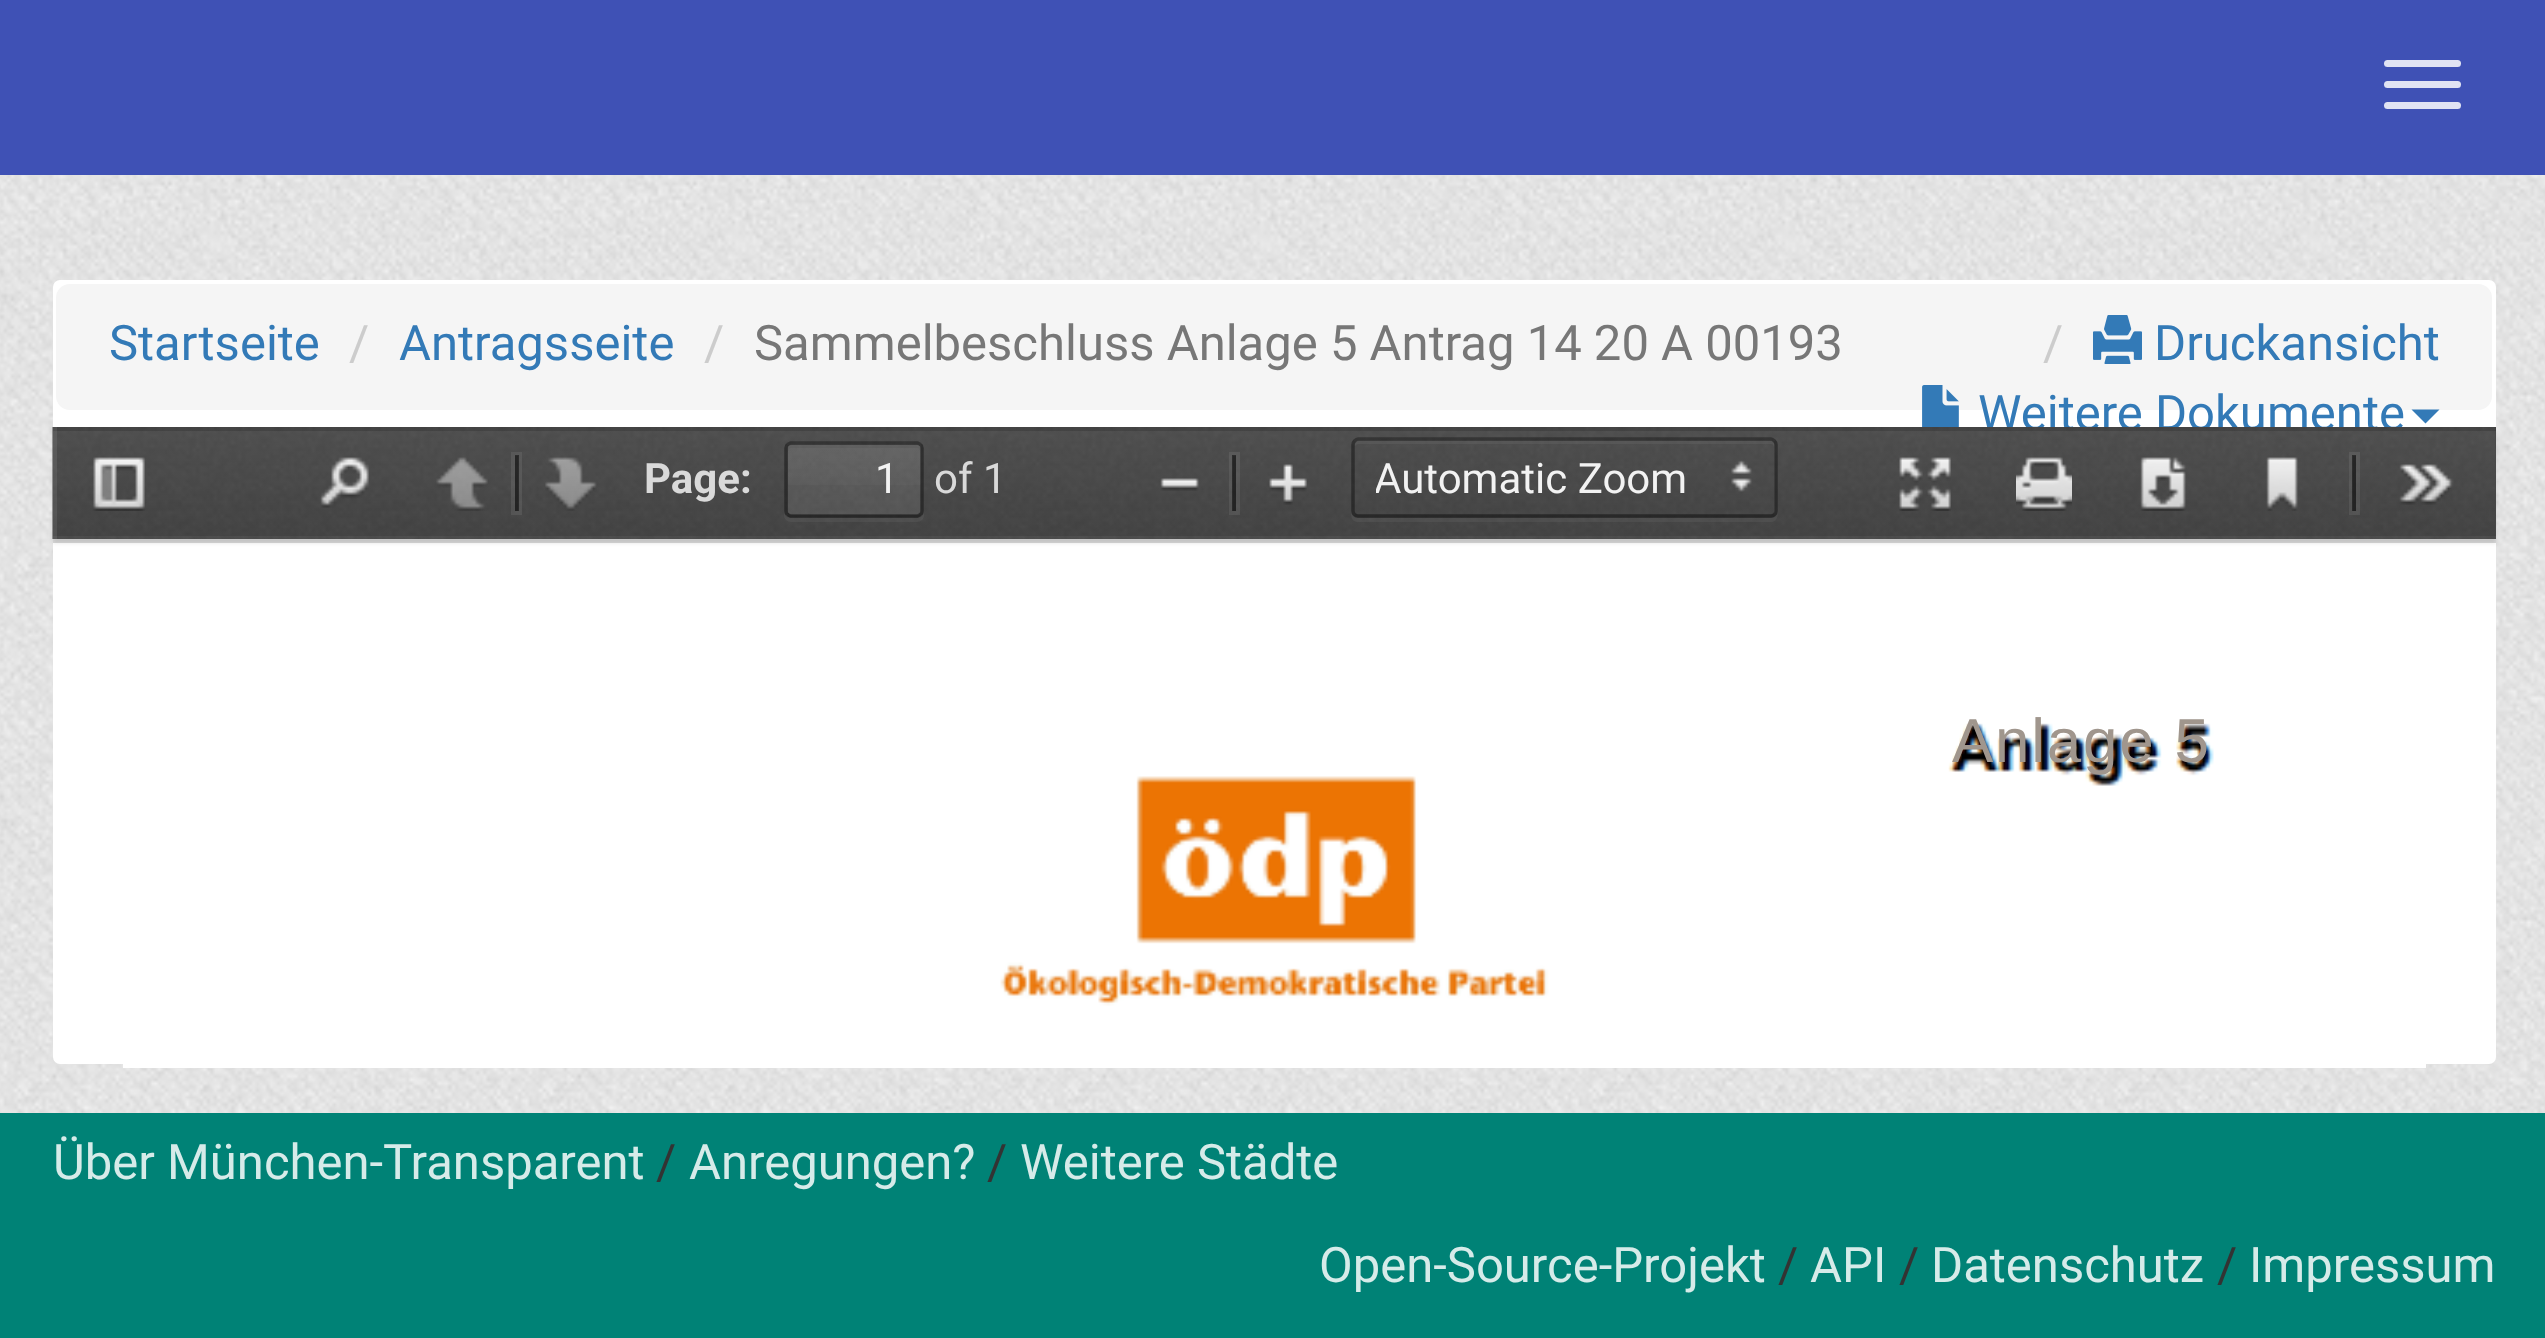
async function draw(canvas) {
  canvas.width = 2545
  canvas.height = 1338
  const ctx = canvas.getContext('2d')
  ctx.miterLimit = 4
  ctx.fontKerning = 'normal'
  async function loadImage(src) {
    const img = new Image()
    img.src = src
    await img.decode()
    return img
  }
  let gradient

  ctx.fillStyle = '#fff'
  ctx.fillRect(0, 0, 2545, 1338)
  ctx.drawImage(await loadImage('image0.png'), 0, 175, 2545, 938)
  ctx.fillStyle = '#3f51b5'
  ctx.fillRect(0, 0, 2545, 175)
  ctx.fillStyle = '#e0e3f3'
  ctx.beginPath()
  ctx.roundRect(2384, 60, 77, 7, 3.5)
  ctx.fill()
  ctx.beginPath()
  ctx.roundRect(2384, 81, 77, 7, 3.5)
  ctx.fill()
  ctx.beginPath()
  ctx.roundRect(2384, 102, 77, 7, 3.5)
  ctx.fill()
  ctx.fillStyle = '#fff'
  ctx.beginPath()
  ctx.roundRect(53, 280, 2443, 784, 7)
  ctx.fill()
  ctx.fillStyle = '#f5f5f5'
  ctx.beginPath()
  ctx.roundRect(56, 284, 2436, 126, 14)
  ctx.fill()
  ctx.font = '49px Roboto'
  ctx.fillStyle = '#337ab7'
  ctx.fillText('Startseite', 109, 360)
  ctx.fillStyle = '#ccc'
  ctx.fillText('/', 349, 360)
  ctx.fillStyle = '#337ab7'
  ctx.fillText('Antragsseite', 399, 360)
  ctx.fillStyle = '#ccc'
  ctx.fillText('/', 704, 360)
  ctx.fillStyle = '#777'
  ctx.fillText('Sammelbeschluss Anlage 5 Antrag 14 20 A 00193', 754, 360)
  ctx.fillStyle = '#ccc'
  ctx.fillText('/', 2043, 360)
  ctx.drawImage(await loadImage('image1.png'), 2093, 315, 49, 49)
  ctx.fillStyle = '#337ab7'
  ctx.fillText('Druckansicht', 2154, 360)
  ctx.drawImage(await loadImage('image2.png'), 1922, 385, 37, 42)
  ctx.fillText('Weitere Dokumente', 1978, 430)
  ctx.beginPath()
  ctx.moveTo(2411.5, 409.5)
  ctx.lineTo(2439.5, 409.5)
  ctx.lineTo(2425.5, 423.5)
  ctx.closePath()
  ctx.fill()
  ctx.fillStyle = '#0000001a'
  ctx.filter = 'blur(2px)'
  ctx.beginPath()
  ctx.rect(53, 431, 2443, 112)
  ctx.fill()
  ctx.filter = 'none'
  ctx.fillStyle = '#00000026'
  ctx.beginPath()
  ctx.moveTo(53, 539)
  ctx.lineTo(53, 543)
  ctx.lineTo(2496, 543)
  ctx.lineTo(2496, 431)
  ctx.lineTo(2496, 539)
  ctx.closePath()
  ctx.fill()
  ctx.fillStyle = '#474747'
  ctx.fillRect(53, 427, 2443, 112)
  ctx.drawImage(await loadImage('image3.png'), 52, 427, 2444, 112)
  ctx.fillStyle = '#ffffff0d'
  ctx.fillRect(53, 536, 2443, 4)
  ctx.fillStyle = '#00000026'
  ctx.fillRect(53, 427, 2443, 4)
  ctx.fillStyle = '#ffffff14'
  ctx.fillRect(53, 427, 4, 112)
  ctx.drawImage(await loadImage('image4.png'), 93, 457, 52, 54)
  ctx.drawImage(await loadImage('image5.png'), 320, 457, 49, 51)
  ctx.drawImage(await loadImage('image6.png'), 436, 457, 52, 54)
  ctx.strokeStyle = '#ffffff14'
  ctx.lineWidth = 4
  ctx.strokeRect(513, 454, 7, 59)
  ctx.fillStyle = '#00000080'
  ctx.fillRect(515, 455, 4, 56)
  ctx.drawImage(await loadImage('image7.png'), 545, 457, 52, 54)
  ctx.font = 'bold 42px Roboto'
  ctx.fillStyle = '#d9d9d9'
  ctx.fillText('Page:', 644, 493)
  ctx.fillStyle = '#ffffff0d'
  ctx.beginPath()
  ctx.moveTo(784, 511)
  ctx.lineTo(784, 515)
  ctx.bezierCurveTo(784, 519, 787, 522, 791, 522)
  ctx.lineTo(917, 522)
  ctx.bezierCurveTo(921, 522, 924, 519, 924, 515)
  ctx.lineTo(924, 511)
  ctx.bezierCurveTo(924, 515, 921, 518, 917, 518)
  ctx.lineTo(791, 518)
  ctx.bezierCurveTo(787, 518, 784, 515, 784, 511)
  ctx.closePath()
  ctx.fill()
  ctx.fillStyle = '#ffffff17'
  ctx.beginPath()
  ctx.roundRect(788, 445, 133, 70, 4)
  ctx.fill()
  gradient = ctx.createLinearGradient(854, 445, 854, 515)
  gradient.addColorStop(0, '#ffffff0d')
  gradient.addColorStop(1, '#ffffff00')
  ctx.fillStyle = gradient
  ctx.fillRect(788, 445, 133, 40)
  ctx.fillStyle = '#0000000d'
  ctx.beginPath()
  ctx.moveTo(791, 448)
  ctx.lineTo(917, 448)
  ctx.bezierCurveTo(919, 448, 920, 450, 920, 452)
  ctx.lineTo(920, 514)
  ctx.bezierCurveTo(921, 513, 921, 512, 921, 511)
  ctx.lineTo(921, 449)
  ctx.bezierCurveTo(921, 447, 919, 445, 917, 445)
  ctx.lineTo(792, 445)
  ctx.bezierCurveTo(790, 445, 788, 447, 788, 449)
  ctx.lineTo(788, 452)
  ctx.bezierCurveTo(788, 450, 789, 448, 791, 448)
  ctx.closePath()
  ctx.fill()
  ctx.beginPath()
  ctx.moveTo(787.5, 444.5)
  ctx.lineTo(790.5, 443)
  ctx.lineTo(917.5, 443)
  ctx.lineTo(920.5, 444.5)
  ctx.strokeStyle = '#00000052'
  ctx.lineWidth = 3.5
  ctx.stroke()
  ctx.beginPath()
  ctx.moveTo(920.5, 444.5)
  ctx.bezierCurveTo(921.5, 445.5, 922, 446.5, 922, 448)
  ctx.lineTo(922, 511)
  ctx.bezierCurveTo(922, 512.5, 921.5, 513.5, 920.5, 514.5)
  ctx.strokeStyle = '#00000061'
  ctx.stroke()
  ctx.beginPath()
  ctx.moveTo(920.5, 514.5)
  ctx.lineTo(917.5, 516)
  ctx.lineTo(790.5, 516)
  ctx.lineTo(787.5, 514.5)
  ctx.strokeStyle = '#0000006b'
  ctx.stroke()
  ctx.beginPath()
  ctx.moveTo(787.5, 514.5)
  ctx.bezierCurveTo(786.5, 513.5, 786, 512.5, 786, 511)
  ctx.lineTo(786, 448)
  ctx.bezierCurveTo(786, 446.5, 786.5, 445.5, 787.5, 444.5)
  ctx.strokeStyle = '#00000061'
  ctx.stroke()
  ctx.font = '42px Roboto'
  ctx.fillStyle = '#f2f2f2'
  ctx.fillText('1', 875, 493)
  ctx.fillStyle = '#d9d9d9'
  ctx.fillText('of 1', 934, 493)
  ctx.drawImage(await loadImage('image8.png'), 1160, 478, 39, 13)
  ctx.strokeStyle = '#ffffff14'
  ctx.lineWidth = 4
  ctx.strokeRect(1231, 454, 7, 59)
  ctx.fillStyle = '#00000080'
  ctx.fillRect(1232, 455, 4, 56)
  ctx.drawImage(await loadImage('image9.png'), 1269, 464, 38, 41)
  ctx.fillStyle = '#ffffff0d'
  ctx.beginPath()
  ctx.moveTo(1351, 511)
  ctx.bezierCurveTo(1351, 516, 1351, 521, 1357, 522)
  ctx.lineTo(1771, 522)
  ctx.bezierCurveTo(1777, 522, 1778, 516, 1778, 511)
  ctx.bezierCurveTo(1778, 515, 1775, 518, 1771, 518)
  ctx.lineTo(1358, 518)
  ctx.bezierCurveTo(1354, 518, 1351, 515, 1351, 511)
  ctx.closePath()
  ctx.fill()
  ctx.drawImage(await loadImage('image10.png'), 1731, 460, 21, 32)
  ctx.beginPath()
  ctx.moveTo(1358, 444)
  ctx.lineTo(1771, 444)
  ctx.bezierCurveTo(1773, 444, 1774, 446, 1774, 448)
  ctx.lineTo(1774, 514)
  ctx.bezierCurveTo(1775, 513, 1775, 512, 1775, 511)
  ctx.lineTo(1775, 445)
  ctx.bezierCurveTo(1775, 443, 1773, 441, 1771, 441)
  ctx.lineTo(1359, 441)
  ctx.bezierCurveTo(1357, 441, 1355, 443, 1355, 445)
  ctx.lineTo(1355, 446)
  ctx.bezierCurveTo(1356, 445, 1357, 444, 1358, 444)
  ctx.closePath()
  ctx.fill()
  ctx.beginPath()
  ctx.moveTo(1354.5, 441)
  ctx.bezierCurveTo(1355.5, 440, 1356.5, 439, 1358, 439)
  ctx.lineTo(1771, 439)
  ctx.bezierCurveTo(1772.5, 439, 1773.5, 440, 1774.5, 441)
  ctx.strokeStyle = '#00000052'
  ctx.lineWidth = 3.5
  ctx.stroke()
  ctx.beginPath()
  ctx.moveTo(1774.5, 441)
  ctx.bezierCurveTo(1775.5, 442, 1776, 443, 1776, 444.5)
  ctx.lineTo(1776, 511)
  ctx.bezierCurveTo(1776, 512.5, 1775.5, 513.5, 1774.5, 514.5)
  ctx.strokeStyle = '#00000061'
  ctx.stroke()
  ctx.beginPath()
  ctx.moveTo(1774.5, 514.5)
  ctx.bezierCurveTo(1773.5, 515.5, 1772.5, 516, 1771, 516)
  ctx.lineTo(1358, 516)
  ctx.bezierCurveTo(1356.5, 516, 1355.5, 515.5, 1354.5, 514.5)
  ctx.strokeStyle = '#0000006b'
  ctx.stroke()
  ctx.beginPath()
  ctx.moveTo(1354.5, 514.5)
  ctx.bezierCurveTo(1353.5, 513.5, 1353, 512.5, 1353, 511)
  ctx.lineTo(1353, 444.5)
  ctx.bezierCurveTo(1353, 443, 1353.5, 442, 1354.5, 441)
  ctx.strokeStyle = '#00000061'
  ctx.stroke()
  ctx.save()
  ctx.beginPath()
  ctx.rect(1376, 452, 420, 56)
  ctx.clip()
  ctx.fillStyle = '#f2f2f2'
  ctx.fillText('Automatic Zoom', 1374, 493)
  ctx.restore()
  ctx.drawImage(await loadImage('image11.png'), 1899, 457, 52, 54)
  ctx.drawImage(await loadImage('image12.png'), 2016, 457, 56, 54)
  ctx.drawImage(await loadImage('image13.png'), 2140, 457, 46, 54)
  ctx.drawImage(await loadImage('image14.png'), 2266, 457, 32, 54)
  ctx.strokeStyle = '#ffffff14'
  ctx.lineWidth = 4
  ctx.strokeRect(2351, 454, 7, 59)
  ctx.fillStyle = '#00000080'
  ctx.fillRect(2352, 455, 4, 56)
  ctx.drawImage(await loadImage('image15.png'), 2399, 464, 55, 41)
  ctx.fillStyle = '#fff'
  ctx.fillRect(123, 1064, 2303, 4)
  ctx.drawImage(await loadImage('image16.png'), 1000, 723, 1214, 283)
  ctx.letterSpacing = '1.75px'
  ctx.font = '62px Liberation Sans'
  ctx.fillStyle = '#a0968d'
  ctx.fillText('Anlage 5', 1952, 762)
  ctx.fillStyle = '#008276'
  ctx.fillRect(0, 1113, 2545, 225)
  ctx.letterSpacing = '0px'
  ctx.font = '49px Roboto'
  ctx.fillStyle = '#d6ebe9'
  ctx.fillText('Über München-Transparent', 53, 1179)
  ctx.fillStyle = '#333'
  ctx.fillText('/', 656, 1179)
  ctx.fillStyle = '#d6ebe9'
  ctx.fillText('Anregungen?', 689, 1179)
  ctx.fillStyle = '#333'
  ctx.fillText('/', 987, 1179)
  ctx.fillStyle = '#d6ebe9'
  ctx.fillText('Weitere Städte', 1020, 1179)
  ctx.fillText('Open-Source-Projekt', 1319, 1282)
  ctx.fillStyle = '#333'
  ctx.fillText('/', 1778, 1282)
  ctx.fillStyle = '#d6ebe9'
  ctx.fillText('API', 1810, 1282)
  ctx.fillStyle = '#333'
  ctx.fillText('/', 1899, 1282)
  ctx.fillStyle = '#d6ebe9'
  ctx.fillText('Datenschutz', 1931, 1282)
  ctx.fillStyle = '#333'
  ctx.fillText('/', 2217, 1282)
  ctx.fillStyle = '#d6ebe9'
  ctx.fillText('Impressum', 2249, 1282)
}

draw(document.querySelector('canvas'))
